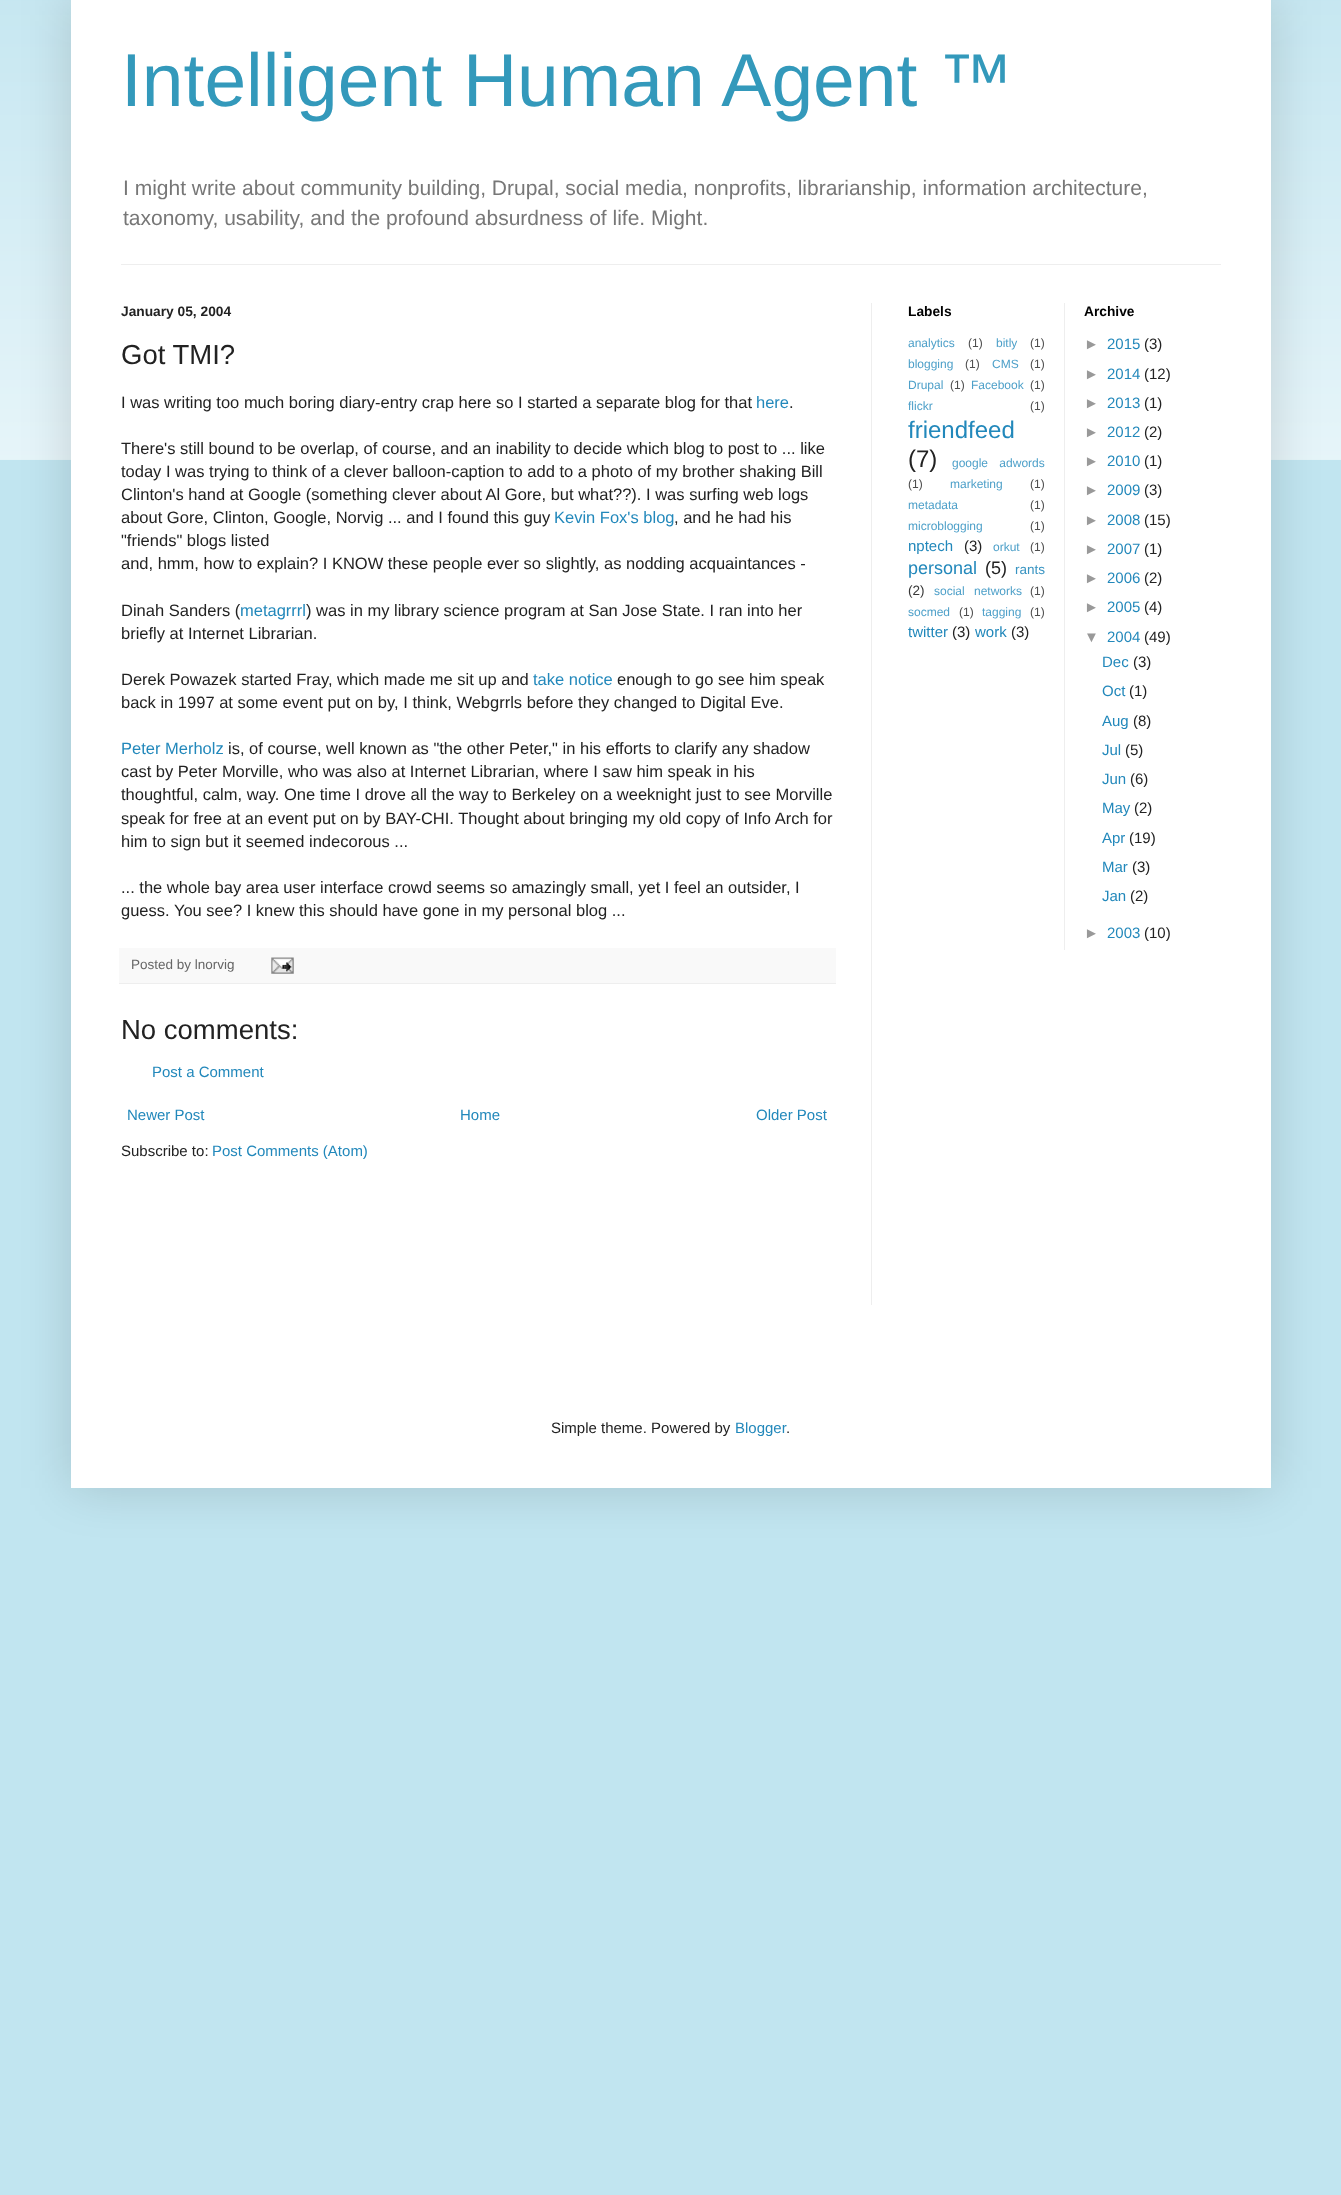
async function draw(canvas) {
  canvas.width = 1341
  canvas.height = 2195
  const ctx = canvas.getContext('2d')
  ctx.miterLimit = 4
  ctx.fontKerning = 'normal'
  async function loadImage(src) {
    const img = new Image()
    img.src = src
    await img.decode()
    return img
  }

  ctx.fillStyle = '#c1e5f0'
  ctx.fillRect(0, 0, 1341, 2195)
  ctx.drawImage(await loadImage('image0.png'), 0, 0, 1341, 460)
  ctx.fillStyle = '#00000026'
  ctx.filter = 'blur(25px)'
  ctx.beginPath()
  ctx.rect(71, -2, 1200, 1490)
  ctx.fill()
  ctx.filter = 'none'
  ctx.fillStyle = '#fff'
  ctx.fillRect(71, 0, 1200, 1488)
  ctx.font = '75px Liberation Sans'
  ctx.fillStyle = '#39b'
  ctx.fillText('Intelligent Human Agent ™', 121, 106)
  ctx.font = '21px Liberation Sans'
  ctx.fillStyle = '#777'
  ctx.fillText('I might write about community building, Drupal, social media, nonprofits, librarianship, information architecture,', 123, 195)
  ctx.fillText('taxonomy, usability, and the profound absurdness of life. Might.', 123, 225)
  ctx.fillStyle = '#eee'
  ctx.fillRect(121, 264, 1100, 1)
  ctx.fillRect(871, 303, 1, 1002)
  ctx.font = 'bold 13.75px Liberation Sans'
  ctx.fillStyle = '#222'
  ctx.fillText('January 05, 2004', 121, 316)
  ctx.font = '27.5px Liberation Sans'
  ctx.fillText('Got TMI?', 121, 364)
  ctx.font = '16.5px Liberation Sans'
  ctx.fillText('I was writing too much boring diary-entry crap here so I started a separate blog for that', 121, 408)
  ctx.fillStyle = '#28b'
  ctx.fillText('here', 756, 408)
  ctx.fillStyle = '#222'
  ctx.fillText('.', 789, 408)
  ctx.fillText('There\'s still bound to be overlap, of course, and an inability to decide which blog to post to ... like', 121, 454)
  ctx.fillText('today I was trying to think of a clever balloon-caption to add to a photo of my brother shaking Bill', 121, 477)
  ctx.fillText('Clinton\'s hand at Google (something clever about Al Gore, but what??). I was surfing web logs', 121, 500)
  ctx.fillText('about Gore, Clinton, Google, Norvig ... and I found this guy', 121, 523)
  ctx.fillStyle = '#28b'
  ctx.fillText('Kevin Fox\'s blog', 554, 523)
  ctx.fillStyle = '#222'
  ctx.fillText(', and he had his', 674, 523)
  ctx.fillText('"friends" blogs listed', 121, 546)
  ctx.fillText('and, hmm, how to explain? I KNOW these people ever so slightly, as nodding acquaintances -', 121, 569)
  ctx.fillText('Dinah Sanders (', 121, 616)
  ctx.fillStyle = '#28b'
  ctx.fillText('metagrrrl', 240, 616)
  ctx.fillStyle = '#222'
  ctx.fillText(') was in my library science program at San Jose State. I ran into her', 306, 616)
  ctx.fillText('briefly at Internet Librarian.', 121, 639)
  ctx.fillText('Derek Powazek started Fray, which made me sit up and', 121, 685)
  ctx.fillStyle = '#28b'
  ctx.fillText('take notice', 533, 685)
  ctx.fillStyle = '#222'
  ctx.fillText('enough to go see him speak', 617, 685)
  ctx.fillText('back in 1997 at some event put on by, I think, Webgrrls before they changed to Digital Eve.', 121, 708)
  ctx.fillStyle = '#28b'
  ctx.fillText('Peter Merholz', 121, 754)
  ctx.fillStyle = '#222'
  ctx.fillText('is, of course, well known as "the other Peter," in his efforts to clarify any shadow', 228, 754)
  ctx.fillText('cast by Peter Morville, who was also at Internet Librarian, where I saw him speak in his', 121, 777)
  ctx.fillText('thoughtful, calm, way. One time I drove all the way to Berkeley on a weeknight just to see Morville', 121, 800)
  ctx.fillText('speak for free at an event put on by BAY-CHI. Thought about bringing my old copy of Info Arch for', 121, 824)
  ctx.fillText('him to sign but it seemed indecorous ...', 121, 847)
  ctx.fillText('... the whole bay area user interface crowd seems so amazingly small, yet I feel an outsider, I', 121, 893)
  ctx.fillText('guess. You see? I knew this should have gone in my personal blog ...', 121, 916)
  ctx.fillStyle = '#f9f9f9'
  ctx.fillRect(119, 948, 717, 35)
  ctx.fillStyle = '#eee'
  ctx.fillRect(119, 983, 717, 1)
  ctx.font = '13.5px Liberation Sans'
  ctx.fillStyle = '#666'
  ctx.fillText('Posted by lnorvig', 131, 969)
  ctx.drawImage(await loadImage('image1.png'), 271, 957, 23, 17)
  ctx.font = '27.5px Liberation Sans'
  ctx.fillStyle = '#222'
  ctx.fillText('No comments:', 121, 1039)
  ctx.font = '15px Liberation Sans'
  ctx.fillStyle = '#28b'
  ctx.fillText('Post a Comment', 152, 1077)
  ctx.fillText('Newer Post', 127, 1120)
  ctx.fillText('Home', 460, 1120)
  ctx.fillText('Older Post', 756, 1120)
  ctx.fillStyle = '#222'
  ctx.fillText('Subscribe to:', 121, 1156)
  ctx.fillStyle = '#28b'
  ctx.fillText('Post Comments (Atom)', 212, 1156)
  ctx.font = 'bold 13.75px Liberation Sans'
  ctx.fillStyle = '#000'
  ctx.fillText('Labels', 908, 316)
  ctx.font = '12px Liberation Sans'
  ctx.fillStyle = '#4ea0c9'
  ctx.fillText('analytics', 908, 347)
  ctx.fillStyle = '#4e4e4e'
  ctx.fillText('(1)', 968, 347)
  ctx.fillStyle = '#4ea0c9'
  ctx.fillText('bitly', 996, 347)
  ctx.fillStyle = '#4e4e4e'
  ctx.fillText('(1)', 1030, 347)
  ctx.fillStyle = '#4ea0c9'
  ctx.fillText('blogging', 908, 368)
  ctx.fillStyle = '#4e4e4e'
  ctx.fillText('(1)', 965, 368)
  ctx.fillStyle = '#4ea0c9'
  ctx.fillText('CMS', 992, 368)
  ctx.fillStyle = '#4e4e4e'
  ctx.fillText('(1)', 1030, 368)
  ctx.fillStyle = '#4ea0c9'
  ctx.fillText('Drupal', 908, 389)
  ctx.fillStyle = '#4e4e4e'
  ctx.fillText('(1)', 950, 389)
  ctx.fillStyle = '#4ea0c9'
  ctx.fillText('Facebook', 971, 389)
  ctx.fillStyle = '#4e4e4e'
  ctx.fillText('(1)', 1030, 389)
  ctx.fillStyle = '#4ea0c9'
  ctx.fillText('flickr', 908, 410)
  ctx.fillStyle = '#4e4e4e'
  ctx.fillText('(1)', 1030, 410)
  ctx.font = '24px Liberation Sans'
  ctx.fillStyle = '#28b'
  ctx.fillText('friendfeed', 908, 438)
  ctx.fillStyle = '#222'
  ctx.fillText('(7)', 908, 467)
  ctx.wordSpacing = '8px'
  ctx.font = '12px Liberation Sans'
  ctx.fillStyle = '#4ea0c9'
  ctx.fillText('google adwords', 952, 467)
  ctx.wordSpacing = '0px'
  ctx.fillStyle = '#4e4e4e'
  ctx.fillText('(1)', 908, 488)
  ctx.fillStyle = '#4ea0c9'
  ctx.fillText('marketing', 950, 488)
  ctx.fillStyle = '#4e4e4e'
  ctx.fillText('(1)', 1030, 488)
  ctx.fillStyle = '#4ea0c9'
  ctx.fillText('metadata', 908, 509)
  ctx.fillStyle = '#4e4e4e'
  ctx.fillText('(1)', 1030, 509)
  ctx.fillStyle = '#4ea0c9'
  ctx.fillText('microblogging', 908, 530)
  ctx.fillStyle = '#4e4e4e'
  ctx.fillText('(1)', 1030, 530)
  ctx.font = '15px Liberation Sans'
  ctx.fillStyle = '#28b'
  ctx.fillText('nptech', 908, 551)
  ctx.fillStyle = '#222'
  ctx.fillText('(3)', 964, 551)
  ctx.font = '12px Liberation Sans'
  ctx.fillStyle = '#4ea0c9'
  ctx.fillText('orkut', 993, 551)
  ctx.fillStyle = '#4e4e4e'
  ctx.fillText('(1)', 1030, 551)
  ctx.font = '18px Liberation Sans'
  ctx.fillStyle = '#28b'
  ctx.fillText('personal', 908, 574)
  ctx.fillStyle = '#222'
  ctx.fillText('(5)', 985, 574)
  ctx.font = '13.5px Liberation Sans'
  ctx.fillStyle = '#3894c2'
  ctx.fillText('rants', 1015, 574)
  ctx.fillStyle = '#383838'
  ctx.fillText('(2)', 908, 595)
  ctx.wordSpacing = '6px'
  ctx.font = '12px Liberation Sans'
  ctx.fillStyle = '#4ea0c9'
  ctx.fillText('social networks', 934, 595)
  ctx.wordSpacing = '0px'
  ctx.fillStyle = '#4e4e4e'
  ctx.fillText('(1)', 1030, 595)
  ctx.fillStyle = '#4ea0c9'
  ctx.fillText('socmed', 908, 616)
  ctx.fillStyle = '#4e4e4e'
  ctx.fillText('(1)', 959, 616)
  ctx.fillStyle = '#4ea0c9'
  ctx.fillText('tagging', 982, 616)
  ctx.fillStyle = '#4e4e4e'
  ctx.fillText('(1)', 1030, 616)
  ctx.font = '15px Liberation Sans'
  ctx.fillStyle = '#28b'
  ctx.fillText('twitter', 908, 637)
  ctx.fillStyle = '#222'
  ctx.fillText('(3)', 952, 637)
  ctx.fillStyle = '#28b'
  ctx.fillText('work', 975, 637)
  ctx.fillStyle = '#222'
  ctx.fillText('(3)', 1011, 637)
  ctx.fillStyle = '#eee'
  ctx.fillRect(1064, 303, 1, 647)
  ctx.font = 'bold 13.75px Liberation Sans'
  ctx.fillStyle = '#000'
  ctx.fillText('Archive', 1084, 316)
  ctx.font = '15px Liberation Sans'
  ctx.fillStyle = '#999'
  ctx.fillText('►', 1084, 349)
  ctx.fillStyle = '#28b'
  ctx.fillText('2015', 1107, 349)
  ctx.fillStyle = '#222'
  ctx.fillText('(3)', 1144, 349)
  ctx.fillStyle = '#999'
  ctx.fillText('►', 1084, 379)
  ctx.fillStyle = '#28b'
  ctx.fillText('2014', 1107, 379)
  ctx.fillStyle = '#222'
  ctx.fillText('(12)', 1144, 379)
  ctx.fillStyle = '#999'
  ctx.fillText('►', 1084, 408)
  ctx.fillStyle = '#28b'
  ctx.fillText('2013', 1107, 408)
  ctx.fillStyle = '#222'
  ctx.fillText('(1)', 1144, 408)
  ctx.fillStyle = '#999'
  ctx.fillText('►', 1084, 437)
  ctx.fillStyle = '#28b'
  ctx.fillText('2012', 1107, 437)
  ctx.fillStyle = '#222'
  ctx.fillText('(2)', 1144, 437)
  ctx.fillStyle = '#999'
  ctx.fillText('►', 1084, 466)
  ctx.fillStyle = '#28b'
  ctx.fillText('2010', 1107, 466)
  ctx.fillStyle = '#222'
  ctx.fillText('(1)', 1144, 466)
  ctx.fillStyle = '#999'
  ctx.fillText('►', 1084, 495)
  ctx.fillStyle = '#28b'
  ctx.fillText('2009', 1107, 495)
  ctx.fillStyle = '#222'
  ctx.fillText('(3)', 1144, 495)
  ctx.fillStyle = '#999'
  ctx.fillText('►', 1084, 525)
  ctx.fillStyle = '#28b'
  ctx.fillText('2008', 1107, 525)
  ctx.fillStyle = '#222'
  ctx.fillText('(15)', 1144, 525)
  ctx.fillStyle = '#999'
  ctx.fillText('►', 1084, 554)
  ctx.fillStyle = '#28b'
  ctx.fillText('2007', 1107, 554)
  ctx.fillStyle = '#222'
  ctx.fillText('(1)', 1144, 554)
  ctx.fillStyle = '#999'
  ctx.fillText('►', 1084, 583)
  ctx.fillStyle = '#28b'
  ctx.fillText('2006', 1107, 583)
  ctx.fillStyle = '#222'
  ctx.fillText('(2)', 1144, 583)
  ctx.fillStyle = '#999'
  ctx.fillText('►', 1084, 612)
  ctx.fillStyle = '#28b'
  ctx.fillText('2005', 1107, 612)
  ctx.fillStyle = '#222'
  ctx.fillText('(4)', 1144, 612)
  ctx.fillStyle = '#999'
  ctx.fillText('▼', 1084, 642)
  ctx.fillStyle = '#28b'
  ctx.fillText('2004', 1107, 642)
  ctx.fillStyle = '#222'
  ctx.fillText('(49)', 1144, 642)
  ctx.fillStyle = '#28b'
  ctx.fillText('Dec', 1102, 667)
  ctx.fillStyle = '#222'
  ctx.fillText('(3)', 1133, 667)
  ctx.fillStyle = '#28b'
  ctx.fillText('Oct', 1102, 696)
  ctx.fillStyle = '#222'
  ctx.fillText('(1)', 1129, 696)
  ctx.fillStyle = '#28b'
  ctx.fillText('Aug', 1102, 726)
  ctx.fillStyle = '#222'
  ctx.fillText('(8)', 1133, 726)
  ctx.fillStyle = '#28b'
  ctx.fillText('Jul', 1102, 755)
  ctx.fillStyle = '#222'
  ctx.fillText('(5)', 1125, 755)
  ctx.fillStyle = '#28b'
  ctx.fillText('Jun', 1102, 784)
  ctx.fillStyle = '#222'
  ctx.fillText('(6)', 1130, 784)
  ctx.fillStyle = '#28b'
  ctx.fillText('May', 1102, 813)
  ctx.fillStyle = '#222'
  ctx.fillText('(2)', 1134, 813)
  ctx.fillStyle = '#28b'
  ctx.fillText('Apr', 1102, 843)
  ctx.fillStyle = '#222'
  ctx.fillText('(19)', 1129, 843)
  ctx.fillStyle = '#28b'
  ctx.fillText('Mar', 1102, 872)
  ctx.fillStyle = '#222'
  ctx.fillText('(3)', 1132, 872)
  ctx.fillStyle = '#28b'
  ctx.fillText('Jan', 1102, 901)
  ctx.fillStyle = '#222'
  ctx.fillText('(2)', 1130, 901)
  ctx.fillStyle = '#999'
  ctx.fillText('►', 1084, 938)
  ctx.fillStyle = '#28b'
  ctx.fillText('2003', 1107, 938)
  ctx.fillStyle = '#222'
  ctx.fillText('(10)', 1144, 938)
  ctx.fillText('Simple theme. Powered by', 551, 1433)
  ctx.fillStyle = '#28b'
  ctx.fillText('Blogger', 735, 1433)
  ctx.fillStyle = '#222'
  ctx.fillText('.', 786, 1433)
}

draw(document.querySelector('canvas'))
